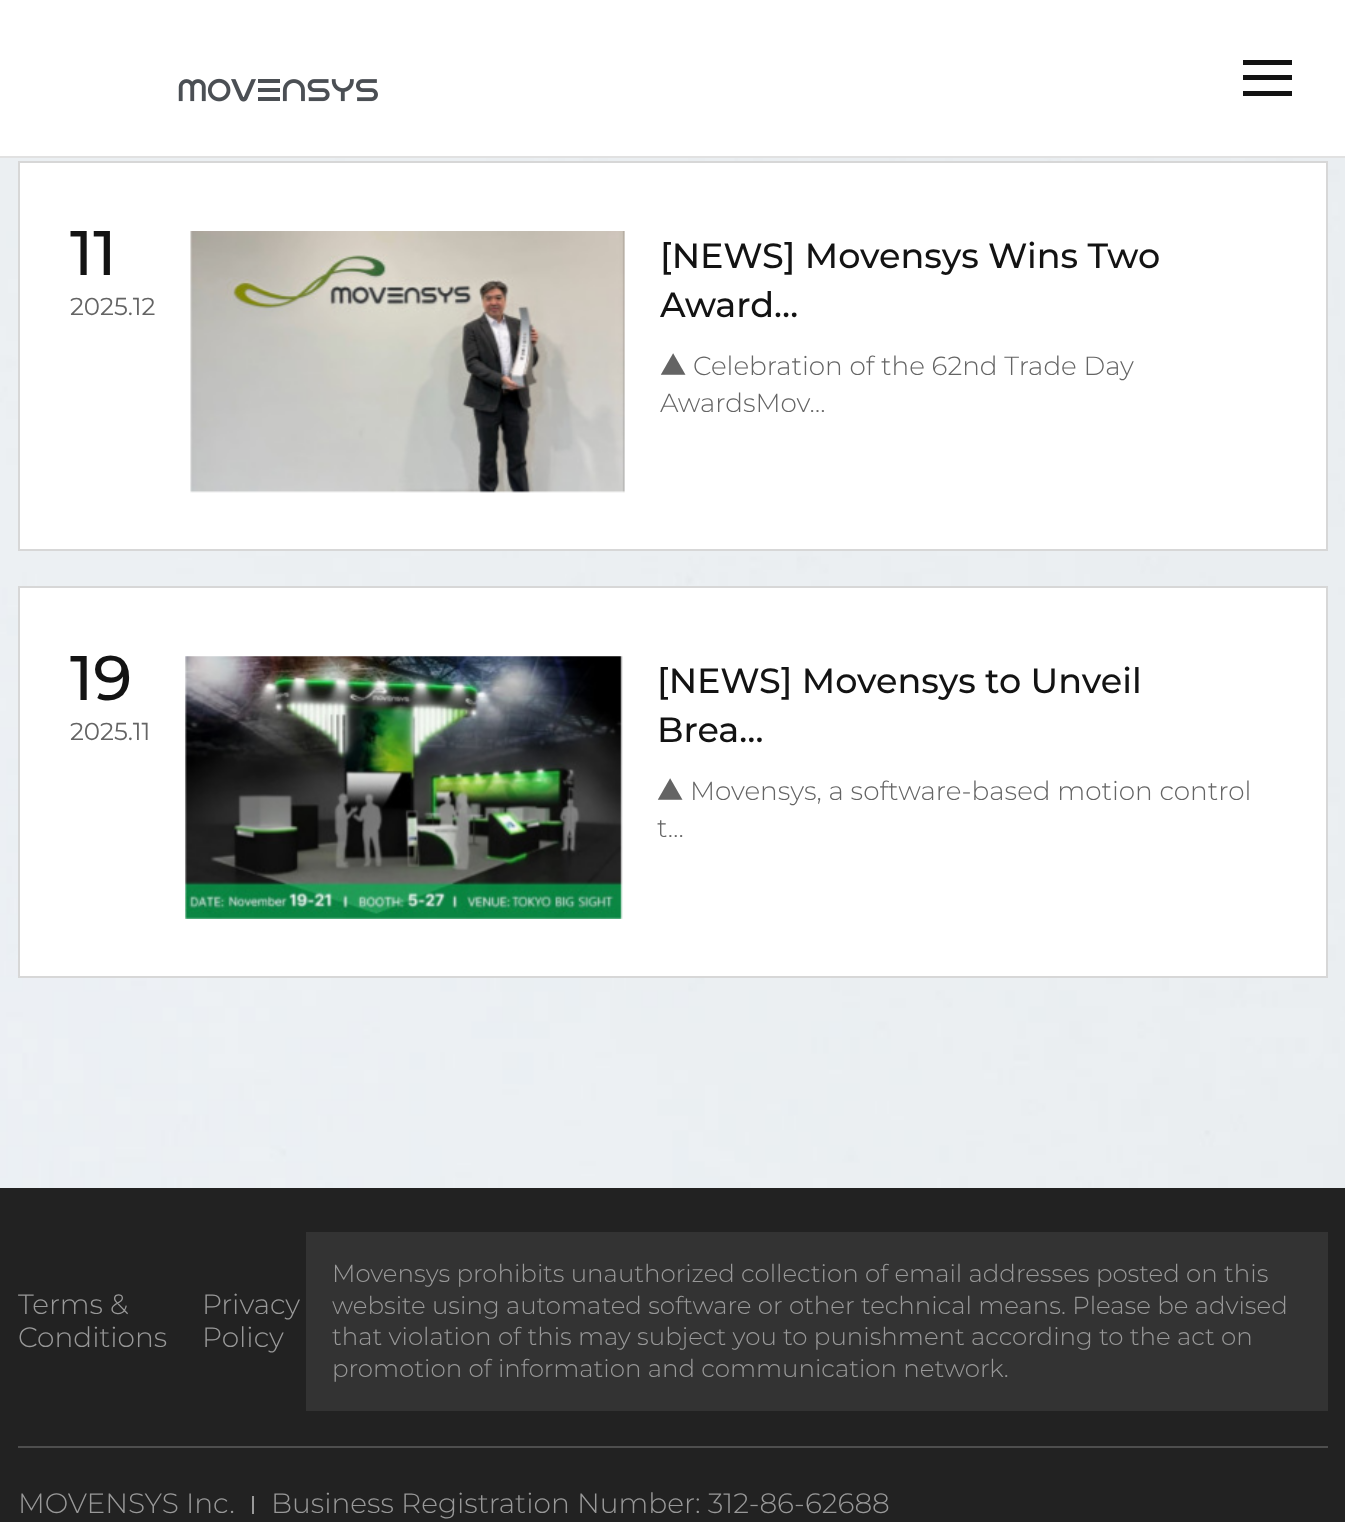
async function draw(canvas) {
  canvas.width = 1345
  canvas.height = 1522
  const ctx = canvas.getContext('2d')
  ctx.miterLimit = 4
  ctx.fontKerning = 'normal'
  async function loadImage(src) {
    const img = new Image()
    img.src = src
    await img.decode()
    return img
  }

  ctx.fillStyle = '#fff'
  ctx.fillRect(0, 0, 1345, 1522)
  ctx.fillStyle = '#e1e1e1'
  ctx.fillRect(0, 156, 1345, 2)
  ctx.drawImage(await loadImage('image0.png'), 178, 78, 200, 24)
  ctx.fillStyle = '#131313'
  ctx.fillRect(1243, 60, 49, 5)
  ctx.fillRect(1243, 75, 49, 5)
  ctx.fillRect(1243, 91, 49, 5)
  ctx.drawImage(await loadImage('image1.png'), 0, 158, 1345, 1030)
  ctx.fillStyle = '#fff'
  ctx.fillRect(20, 163, 1306, 386)
  ctx.drawImage(await loadImage('image2.png'), 190, 231, 435, 262)
  ctx.strokeStyle = '#d7d7d7'
  ctx.lineWidth = 2
  ctx.strokeRect(19, 162, 1308, 388)
  ctx.font = '500 63px Montserrat'
  ctx.fillStyle = '#131313'
  ctx.fillText('11', 70, 275)
  ctx.font = '24.5px Montserrat'
  ctx.fillStyle = '#646464'
  ctx.fillText('2025.12', 70, 315)
  ctx.font = '500 35px Montserrat'
  ctx.fillStyle = '#131313'
  ctx.fillText('[NEWS] Movensys Wins Two', 660, 268)
  ctx.fillText('Award…', 660, 317)
  ctx.font = '300 26.25px Noto Sans KR'
  ctx.fillStyle = '#646464'
  ctx.fillText('▲', 660, 375)
  ctx.font = '300 26.25px Montserrat'
  ctx.fillText('Celebration of the 62nd Trade Day', 693, 375)
  ctx.fillText('AwardsMov…', 660, 412)
  ctx.fillStyle = '#fff'
  ctx.fillRect(20, 588, 1306, 388)
  ctx.drawImage(await loadImage('image3.png'), 185, 656, 438, 263)
  ctx.strokeRect(19, 587, 1308, 390)
  ctx.font = '500 63px Montserrat'
  ctx.fillStyle = '#131313'
  ctx.fillText('19', 70, 700)
  ctx.font = '24.5px Montserrat'
  ctx.fillStyle = '#646464'
  ctx.fillText('2025.11', 70, 740)
  ctx.font = '500 35px Montserrat'
  ctx.fillStyle = '#131313'
  ctx.fillText('[NEWS] Movensys to Unveil', 657, 693)
  ctx.fillText('Brea…', 657, 742)
  ctx.font = '300 26.25px Noto Sans KR'
  ctx.fillStyle = '#646464'
  ctx.fillText('▲', 657, 800)
  ctx.font = '300 26.25px Montserrat'
  ctx.fillText('Movensys, a software-based motion control', 690, 800)
  ctx.fillText('t…', 657, 837)
  ctx.fillStyle = '#222'
  ctx.fillRect(0, 1188, 1345, 334)
  ctx.fillStyle = '#4e4e4e'
  ctx.fillRect(18, 1446, 1310, 2)
  ctx.font = '300 28px Montserrat'
  ctx.fillStyle = '#999'
  ctx.fillText('Terms &', 18, 1314)
  ctx.fillText('Conditions', 18, 1347)
  ctx.fillText('Privacy', 202, 1314)
  ctx.fillText('Policy', 202, 1347)
  ctx.fillStyle = '#333'
  ctx.fillRect(306, 1232, 1022, 179)
  ctx.font = '300 24.5px Montserrat'
  ctx.fillStyle = '#999'
  ctx.fillText('Movensys prohibits unauthorized collection of email addresses posted on this', 332, 1282)
  ctx.fillText('website using automated software or other technical means. Please be advised', 332, 1314)
  ctx.fillText('that violation of this may subject you to punishment according to the act on', 332, 1345)
  ctx.fillText('promotion of information and communication network.', 332, 1377)
  ctx.font = '300 28px Montserrat'
  ctx.fillText('MOVENSYS Inc.', 18, 1513)
  ctx.fillRect(252, 1496, 2, 18)
  ctx.fillText('Business Registration Number: 312-86-62688', 271, 1513)
}

draw(document.querySelector('canvas'))
